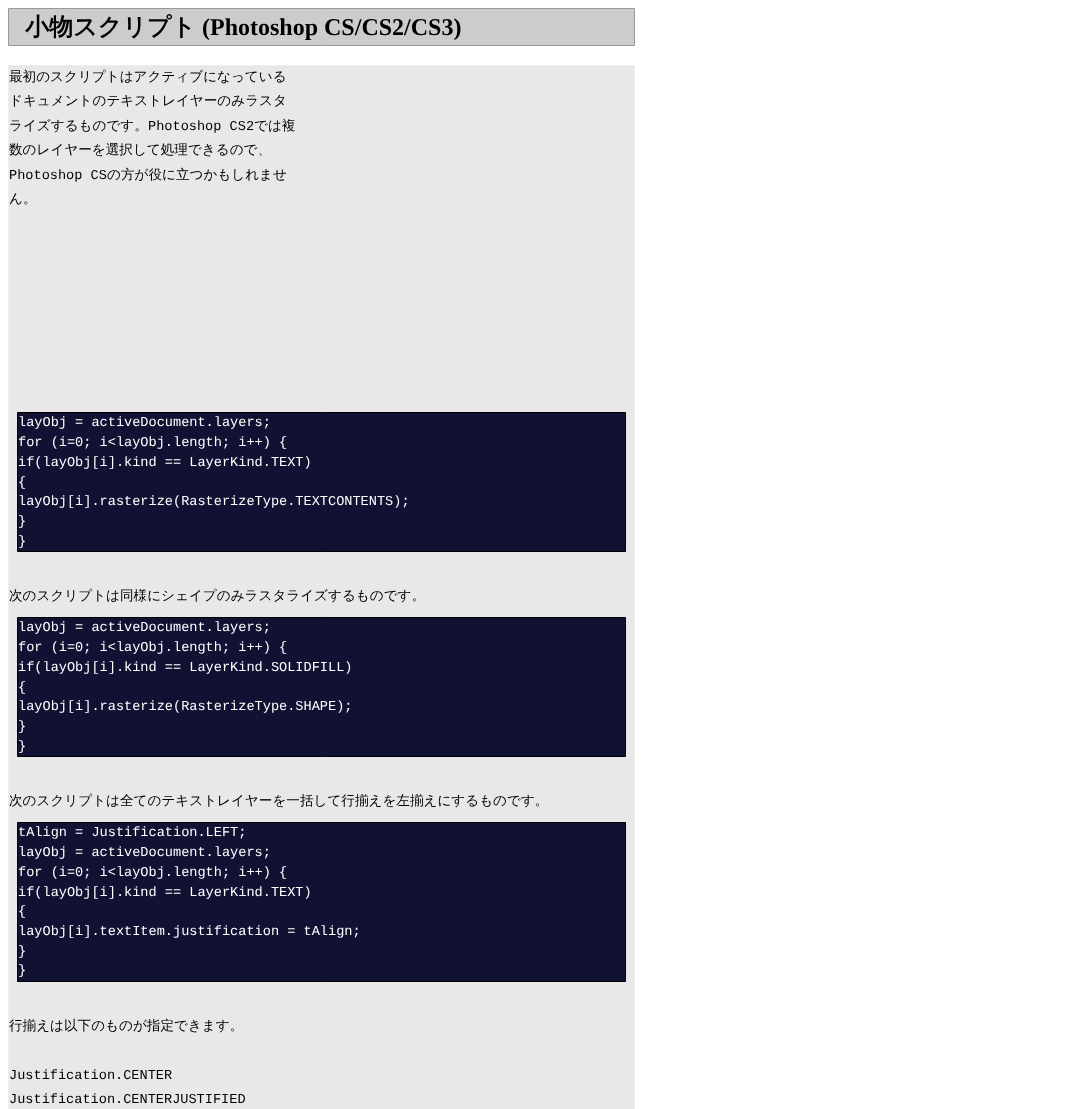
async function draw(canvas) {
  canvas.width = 1086
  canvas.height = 1109
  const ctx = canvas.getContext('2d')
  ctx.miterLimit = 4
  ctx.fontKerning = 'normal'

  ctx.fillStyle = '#fff'
  ctx.fillRect(0, 0, 1086, 1109)
  ctx.fillStyle = '#ccc'
  ctx.beginPath()
  ctx.rect(8.5, 8.5, 626, 37)
  ctx.fill()
  ctx.strokeStyle = '#999'
  ctx.stroke()
  ctx.font = 'bold 24px WenQuanYi Zen Hei'
  ctx.fillStyle = '#000'
  ctx.fillText('小物スクリプト', 25, 35)
  ctx.font = 'bold 24px Liberation Serif'
  ctx.fillText('(Photoshop CS/CS2/CS3)', 202, 35)
  ctx.fillStyle = '#e8e8e8'
  ctx.beginPath()
  ctx.rect(8.5, 65.5, 626, 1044)
  ctx.fill()
  ctx.strokeStyle = '#eee'
  ctx.stroke()
  ctx.font = '500 13.6px WenQuanYi Zen Hei'
  ctx.fillStyle = '#000'
  ctx.fillText('最初のスクリプトはアクティブになっている', 9, 81)
  ctx.fillText('ドキュメントのテキストレイヤーのみラスタ', 9, 105)
  ctx.fillText('ライズするものです。', 9, 130)
  ctx.font = '13.6px Liberation Mono'
  ctx.fillText('Photoshop CS2', 148, 130)
  ctx.font = '500 13.6px WenQuanYi Zen Hei'
  ctx.fillText('では複', 254, 130)
  ctx.fillText('数のレイヤーを選択して処理できるので、', 9, 154)
  ctx.font = '13.6px Liberation Mono'
  ctx.fillText('Photoshop CS', 9, 179)
  ctx.font = '500 13.6px WenQuanYi Zen Hei'
  ctx.fillText('の方が役に立つかもしれませ', 107, 179)
  ctx.fillText('ん。', 9, 203)
  ctx.fillStyle = '#113'
  ctx.beginPath()
  ctx.rect(17.5, 412.5, 608, 139)
  ctx.fill()
  ctx.strokeStyle = '#000'
  ctx.stroke()
  ctx.font = '13.6px Liberation Mono'
  ctx.fillStyle = '#fff'
  ctx.fillText('layObj = activeDocument.layers;', 18, 426)
  ctx.fillText('for (i=0; i<layObj.length; i++) {', 18, 446)
  ctx.fillText('if(layObj[i].kind == LayerKind.TEXT)', 18, 466)
  ctx.fillText('{', 18, 486)
  ctx.fillText('layObj[i].rasterize(RasterizeType.TEXTCONTENTS);', 18, 505)
  ctx.fillText('}', 18, 525)
  ctx.fillText('}', 18, 545)
  ctx.font = '500 13.6px WenQuanYi Zen Hei'
  ctx.fillStyle = '#000'
  ctx.fillText('次のスクリプトは同様にシェイプのみラスタライズするものです。', 9, 600)
  ctx.fillStyle = '#113'
  ctx.beginPath()
  ctx.rect(17.5, 617.5, 608, 139)
  ctx.fill()
  ctx.stroke()
  ctx.font = '13.6px Liberation Mono'
  ctx.fillStyle = '#fff'
  ctx.fillText('layObj = activeDocument.layers;', 18, 631)
  ctx.fillText('for (i=0; i<layObj.length; i++) {', 18, 651)
  ctx.fillText('if(layObj[i].kind == LayerKind.SOLIDFILL)', 18, 671)
  ctx.fillText('{', 18, 691)
  ctx.fillText('layObj[i].rasterize(RasterizeType.SHAPE);', 18, 710)
  ctx.fillText('}', 18, 730)
  ctx.fillText('}', 18, 750)
  ctx.font = '500 13.6px WenQuanYi Zen Hei'
  ctx.fillStyle = '#000'
  ctx.fillText('次のスクリプトは全てのテキストレイヤーを一括して行揃えを左揃えにするものです。', 9, 805)
  ctx.fillStyle = '#113'
  ctx.beginPath()
  ctx.rect(17.5, 822.5, 608, 159)
  ctx.fill()
  ctx.stroke()
  ctx.font = '13.6px Liberation Mono'
  ctx.fillStyle = '#fff'
  ctx.fillText('tAlign = Justification.LEFT;', 18, 836)
  ctx.fillText('layObj = activeDocument.layers;', 18, 856)
  ctx.fillText('for (i=0; i<layObj.length; i++) {', 18, 876)
  ctx.fillText('if(layObj[i].kind == LayerKind.TEXT)', 18, 896)
  ctx.fillText('{', 18, 915)
  ctx.fillText('layObj[i].textItem.justification = tAlign;', 18, 935)
  ctx.fillText('}', 18, 955)
  ctx.fillText('}', 18, 974)
  ctx.font = '500 13.6px WenQuanYi Zen Hei'
  ctx.fillStyle = '#000'
  ctx.fillText('行揃えは以下のものが指定できます。', 9, 1030)
  ctx.font = '13.6px Liberation Mono'
  ctx.fillText('Justification.CENTER', 9, 1079)
  ctx.fillText('Justification.CENTERJUSTIFIED', 9, 1103)
}

draw(document.querySelector('canvas'))
